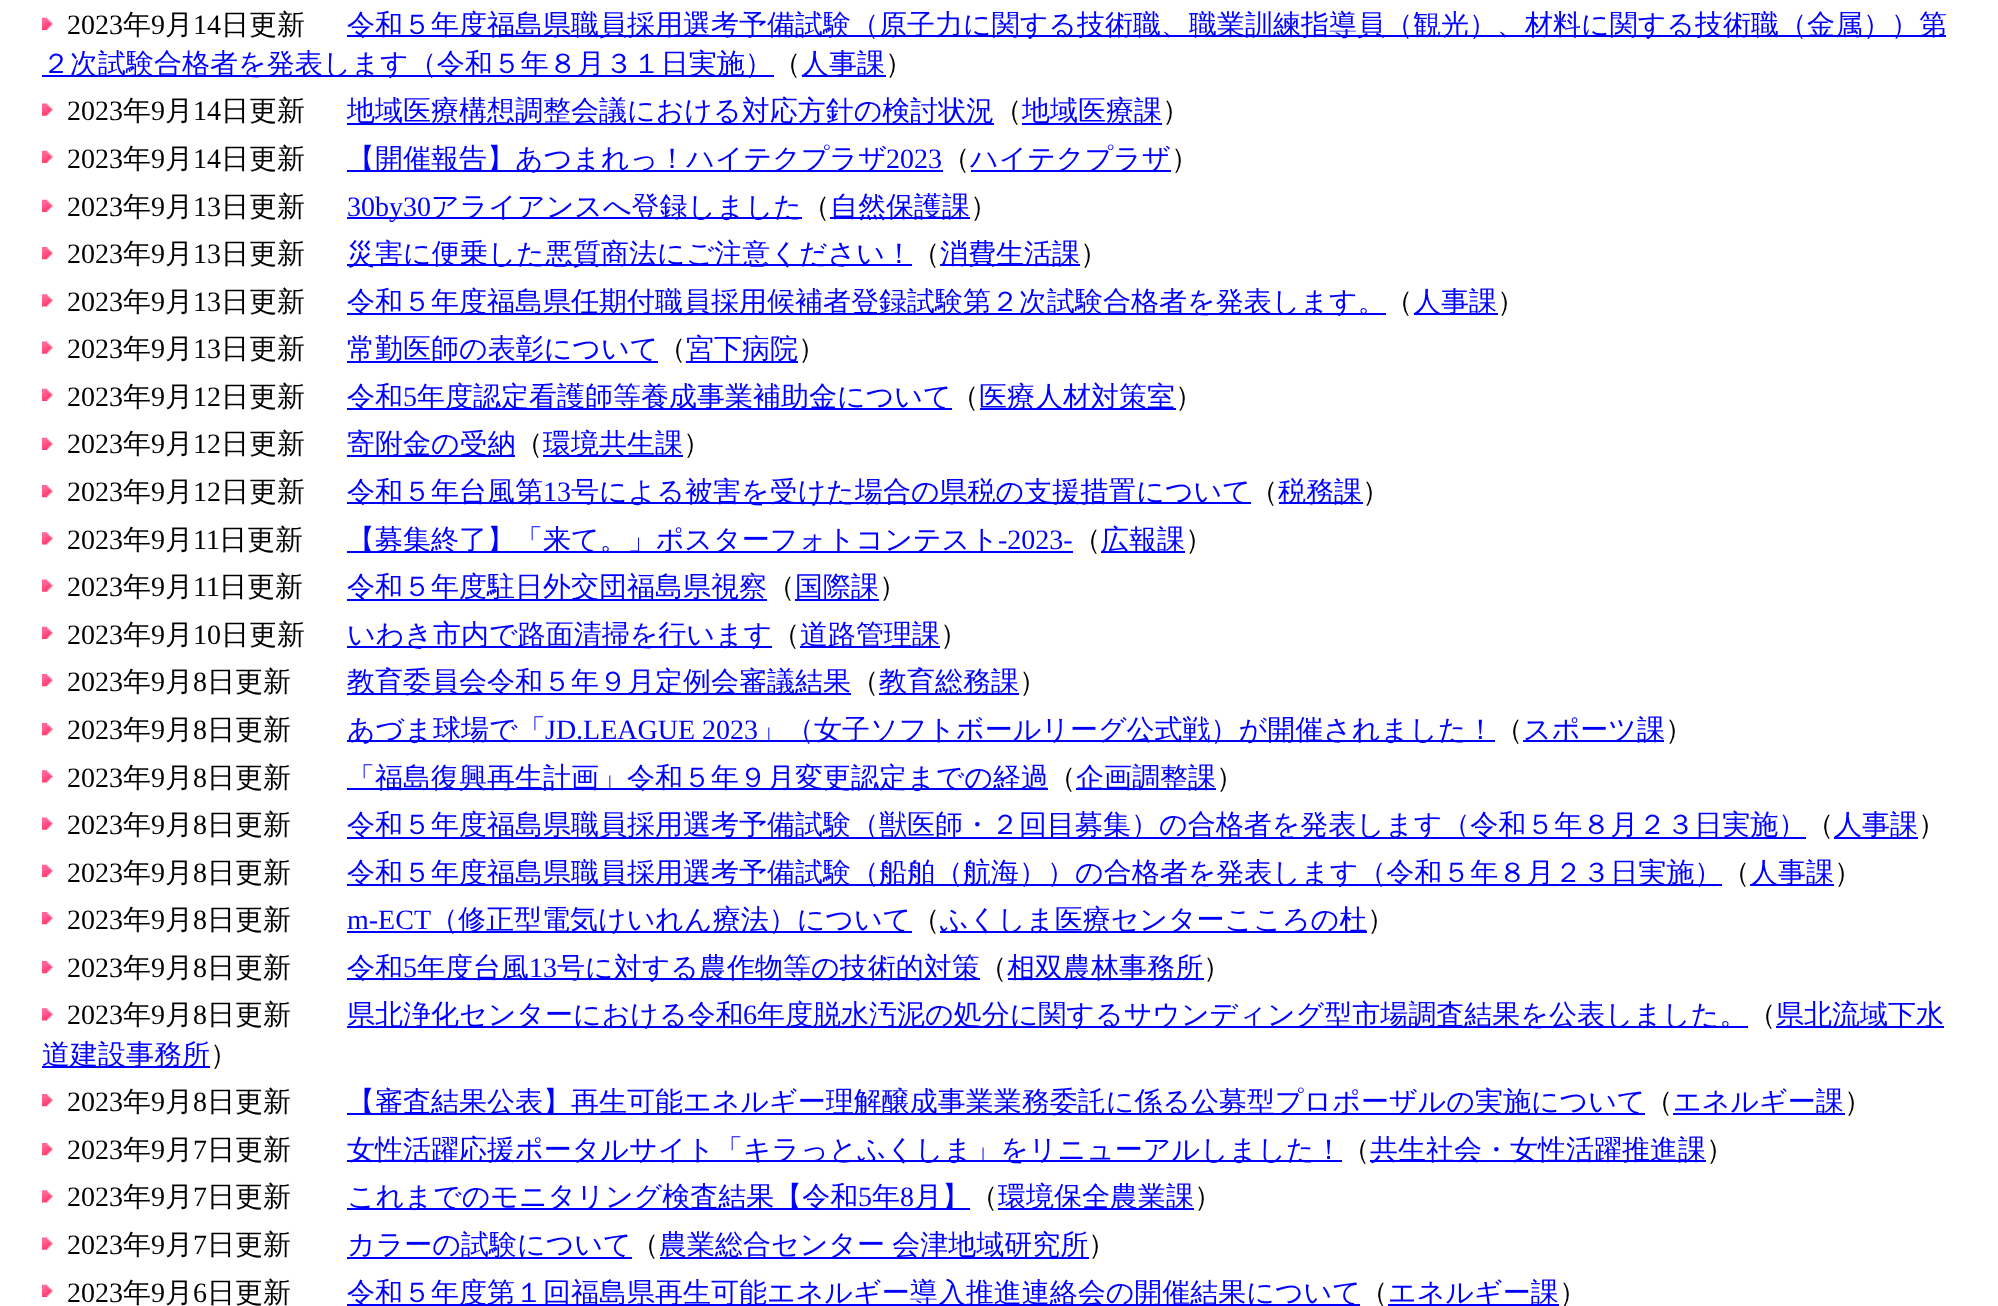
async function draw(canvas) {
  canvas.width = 1998
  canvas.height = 1306
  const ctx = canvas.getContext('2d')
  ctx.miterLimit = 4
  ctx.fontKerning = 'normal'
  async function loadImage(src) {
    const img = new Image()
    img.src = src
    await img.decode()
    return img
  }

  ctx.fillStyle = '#fff'
  ctx.fillRect(0, 0, 1998, 1306)
  ctx.drawImage(await loadImage('image0.png'), 42, 17, 11, 13)
  ctx.font = '28px Liberation Serif'
  ctx.fillStyle = '#000'
  ctx.fillText('2023', 67, 34)
  ctx.font = '500 28px WenQuanYi Zen Hei'
  ctx.fillText('年', 123, 34)
  ctx.font = '28px Liberation Serif'
  ctx.fillText('9', 151, 34)
  ctx.font = '500 28px WenQuanYi Zen Hei'
  ctx.fillText('月', 165, 34)
  ctx.font = '28px Liberation Serif'
  ctx.fillText('14', 193, 34)
  ctx.font = '500 28px WenQuanYi Zen Hei'
  ctx.fillText('日更新', 221, 34)
  ctx.fillStyle = '#00f'
  ctx.fillRect(347, 35, 1599, 2)
  ctx.fillText('令和５年度福島県職員採用選考予備試験（原子力に関する技術職、職業訓練指導員（観光）、材料に関する技術職（金属））第', 347, 34)
  ctx.fillRect(42, 75, 732, 2)
  ctx.fillText('２次試験合格者を発表します（令和５年８月３１日実施）', 42, 73)
  ctx.fillStyle = '#000'
  ctx.fillText('（', 773, 73)
  ctx.fillStyle = '#00f'
  ctx.fillRect(802, 75, 84, 2)
  ctx.fillText('人事課', 801, 73)
  ctx.fillStyle = '#000'
  ctx.fillText('）', 885, 73)
  ctx.drawImage(await loadImage('image1.png'), 42, 103, 11, 13)
  ctx.font = '28px Liberation Serif'
  ctx.fillText('2023', 67, 120)
  ctx.font = '500 28px WenQuanYi Zen Hei'
  ctx.fillText('年', 123, 120)
  ctx.font = '28px Liberation Serif'
  ctx.fillText('9', 151, 120)
  ctx.font = '500 28px WenQuanYi Zen Hei'
  ctx.fillText('月', 165, 120)
  ctx.font = '28px Liberation Serif'
  ctx.fillText('14', 193, 120)
  ctx.font = '500 28px WenQuanYi Zen Hei'
  ctx.fillText('日更新', 221, 120)
  ctx.fillStyle = '#00f'
  ctx.fillRect(347, 123, 647, 2)
  ctx.fillText('地域医療構想調整会議における対応方針の検討状況', 347, 120)
  ctx.fillStyle = '#000'
  ctx.fillText('（', 994, 120)
  ctx.fillStyle = '#00f'
  ctx.fillRect(1022, 123, 140, 2)
  ctx.fillText('地域医療課', 1022, 120)
  ctx.fillStyle = '#000'
  ctx.fillText('）', 1162, 120)
  ctx.drawImage(await loadImage('image0.png'), 42, 150, 11, 13)
  ctx.font = '28px Liberation Serif'
  ctx.fillText('2023', 67, 168)
  ctx.font = '500 28px WenQuanYi Zen Hei'
  ctx.fillText('年', 123, 168)
  ctx.font = '28px Liberation Serif'
  ctx.fillText('9', 151, 168)
  ctx.font = '500 28px WenQuanYi Zen Hei'
  ctx.fillText('月', 165, 168)
  ctx.font = '28px Liberation Serif'
  ctx.fillText('14', 193, 168)
  ctx.font = '500 28px WenQuanYi Zen Hei'
  ctx.fillText('日更新', 221, 168)
  ctx.fillStyle = '#00f'
  ctx.fillRect(347, 170, 596, 2)
  ctx.fillText('【開催報告】あつまれっ！ハイテクプラザ', 347, 168)
  ctx.font = '28px Liberation Serif'
  ctx.fillText('2023', 886, 168)
  ctx.font = '500 28px WenQuanYi Zen Hei'
  ctx.fillStyle = '#000'
  ctx.fillText('（', 942, 168)
  ctx.fillStyle = '#00f'
  ctx.fillRect(971, 170, 200, 2)
  ctx.fillText('ハイテクプラザ', 970, 168)
  ctx.fillStyle = '#000'
  ctx.fillText('）', 1171, 168)
  ctx.drawImage(await loadImage('image0.png'), 42, 199, 11, 13)
  ctx.font = '28px Liberation Serif'
  ctx.fillText('2023', 67, 216)
  ctx.font = '500 28px WenQuanYi Zen Hei'
  ctx.fillText('年', 123, 216)
  ctx.font = '28px Liberation Serif'
  ctx.fillText('9', 151, 216)
  ctx.font = '500 28px WenQuanYi Zen Hei'
  ctx.fillText('月', 165, 216)
  ctx.font = '28px Liberation Serif'
  ctx.fillText('13', 193, 216)
  ctx.font = '500 28px WenQuanYi Zen Hei'
  ctx.fillText('日更新', 221, 216)
  ctx.fillStyle = '#00f'
  ctx.fillRect(347, 217, 455, 2)
  ctx.font = '28px Liberation Serif'
  ctx.fillText('30by30', 347, 216)
  ctx.font = '500 28px WenQuanYi Zen Hei'
  ctx.fillText('アライアンスへ登録しました', 431, 216)
  ctx.fillStyle = '#000'
  ctx.fillText('（', 802, 216)
  ctx.fillStyle = '#00f'
  ctx.fillRect(830, 217, 140, 2)
  ctx.fillText('自然保護課', 830, 216)
  ctx.fillStyle = '#000'
  ctx.fillText('）', 970, 216)
  ctx.drawImage(await loadImage('image2.png'), 42, 247, 11, 13)
  ctx.font = '28px Liberation Serif'
  ctx.fillText('2023', 67, 263)
  ctx.font = '500 28px WenQuanYi Zen Hei'
  ctx.fillText('年', 123, 263)
  ctx.font = '28px Liberation Serif'
  ctx.fillText('9', 151, 263)
  ctx.font = '500 28px WenQuanYi Zen Hei'
  ctx.fillText('月', 165, 263)
  ctx.font = '28px Liberation Serif'
  ctx.fillText('13', 193, 263)
  ctx.font = '500 28px WenQuanYi Zen Hei'
  ctx.fillText('日更新', 221, 263)
  ctx.fillStyle = '#00f'
  ctx.fillRect(347, 264, 565, 2)
  ctx.fillText('災害に便乗した悪質商法にご注意ください！', 347, 263)
  ctx.fillStyle = '#000'
  ctx.fillText('（', 912, 263)
  ctx.fillStyle = '#00f'
  ctx.fillRect(940, 264, 140, 2)
  ctx.fillText('消費生活課', 940, 263)
  ctx.fillStyle = '#000'
  ctx.fillText('）', 1080, 263)
  ctx.drawImage(await loadImage('image3.png'), 42, 294, 11, 13)
  ctx.font = '28px Liberation Serif'
  ctx.fillText('2023', 67, 311)
  ctx.font = '500 28px WenQuanYi Zen Hei'
  ctx.fillText('年', 123, 311)
  ctx.font = '28px Liberation Serif'
  ctx.fillText('9', 151, 311)
  ctx.font = '500 28px WenQuanYi Zen Hei'
  ctx.fillText('月', 165, 311)
  ctx.font = '28px Liberation Serif'
  ctx.fillText('13', 193, 311)
  ctx.font = '500 28px WenQuanYi Zen Hei'
  ctx.fillText('日更新', 221, 311)
  ctx.fillStyle = '#00f'
  ctx.fillRect(347, 313, 1039, 2)
  ctx.fillText('令和５年度福島県任期付職員採用候補者登録試験第２次試験合格者を発表します。', 347, 311)
  ctx.fillStyle = '#000'
  ctx.fillText('（', 1385, 311)
  ctx.fillStyle = '#00f'
  ctx.fillRect(1414, 313, 84, 2)
  ctx.fillText('人事課', 1413, 311)
  ctx.fillStyle = '#000'
  ctx.fillText('）', 1497, 311)
  ctx.drawImage(await loadImage('image1.png'), 42, 341, 11, 13)
  ctx.font = '28px Liberation Serif'
  ctx.fillText('2023', 67, 358)
  ctx.font = '500 28px WenQuanYi Zen Hei'
  ctx.fillText('年', 123, 358)
  ctx.font = '28px Liberation Serif'
  ctx.fillText('9', 151, 358)
  ctx.font = '500 28px WenQuanYi Zen Hei'
  ctx.fillText('月', 165, 358)
  ctx.font = '28px Liberation Serif'
  ctx.fillText('13', 193, 358)
  ctx.font = '500 28px WenQuanYi Zen Hei'
  ctx.fillText('日更新', 221, 358)
  ctx.fillStyle = '#00f'
  ctx.fillRect(347, 361, 311, 2)
  ctx.fillText('常勤医師の表彰について', 347, 358)
  ctx.fillStyle = '#000'
  ctx.fillText('（', 658, 358)
  ctx.fillStyle = '#00f'
  ctx.fillRect(686, 361, 112, 2)
  ctx.fillText('宮下病院', 686, 358)
  ctx.fillStyle = '#000'
  ctx.fillText('）', 798, 358)
  ctx.drawImage(await loadImage('image0.png'), 42, 388, 11, 13)
  ctx.font = '28px Liberation Serif'
  ctx.fillText('2023', 67, 406)
  ctx.font = '500 28px WenQuanYi Zen Hei'
  ctx.fillText('年', 123, 406)
  ctx.font = '28px Liberation Serif'
  ctx.fillText('9', 151, 406)
  ctx.font = '500 28px WenQuanYi Zen Hei'
  ctx.fillText('月', 165, 406)
  ctx.font = '28px Liberation Serif'
  ctx.fillText('12', 193, 406)
  ctx.font = '500 28px WenQuanYi Zen Hei'
  ctx.fillText('日更新', 221, 406)
  ctx.fillStyle = '#00f'
  ctx.fillRect(347, 408, 605, 2)
  ctx.fillText('令和', 347, 406)
  ctx.font = '28px Liberation Serif'
  ctx.fillText('5', 403, 406)
  ctx.font = '500 28px WenQuanYi Zen Hei'
  ctx.fillText('年度認定看護師等養成事業補助金について', 417, 406)
  ctx.fillStyle = '#000'
  ctx.fillText('（', 951, 406)
  ctx.fillStyle = '#00f'
  ctx.fillRect(980, 408, 196, 2)
  ctx.fillText('医療人材対策室', 979, 406)
  ctx.fillStyle = '#000'
  ctx.fillText('）', 1175, 406)
  ctx.drawImage(await loadImage('image0.png'), 42, 437, 11, 13)
  ctx.font = '28px Liberation Serif'
  ctx.fillText('2023', 67, 453)
  ctx.font = '500 28px WenQuanYi Zen Hei'
  ctx.fillText('年', 123, 453)
  ctx.font = '28px Liberation Serif'
  ctx.fillText('9', 151, 453)
  ctx.font = '500 28px WenQuanYi Zen Hei'
  ctx.fillText('月', 165, 453)
  ctx.font = '28px Liberation Serif'
  ctx.fillText('12', 193, 453)
  ctx.font = '500 28px WenQuanYi Zen Hei'
  ctx.fillText('日更新', 221, 453)
  ctx.fillStyle = '#00f'
  ctx.fillRect(347, 455, 168, 2)
  ctx.fillText('寄附金の受納', 347, 453)
  ctx.fillStyle = '#000'
  ctx.fillText('（', 515, 453)
  ctx.fillStyle = '#00f'
  ctx.fillRect(543, 455, 140, 2)
  ctx.fillText('環境共生課', 543, 453)
  ctx.fillStyle = '#000'
  ctx.fillText('）', 683, 453)
  ctx.drawImage(await loadImage('image2.png'), 42, 485, 11, 13)
  ctx.font = '28px Liberation Serif'
  ctx.fillText('2023', 67, 501)
  ctx.font = '500 28px WenQuanYi Zen Hei'
  ctx.fillText('年', 123, 501)
  ctx.font = '28px Liberation Serif'
  ctx.fillText('9', 151, 501)
  ctx.font = '500 28px WenQuanYi Zen Hei'
  ctx.fillText('月', 165, 501)
  ctx.font = '28px Liberation Serif'
  ctx.fillText('12', 193, 501)
  ctx.font = '500 28px WenQuanYi Zen Hei'
  ctx.fillText('日更新', 221, 501)
  ctx.fillStyle = '#00f'
  ctx.fillRect(347, 502, 904, 2)
  ctx.fillText('令和５年台風第', 347, 501)
  ctx.font = '28px Liberation Serif'
  ctx.fillText('13', 543, 501)
  ctx.font = '500 28px WenQuanYi Zen Hei'
  ctx.fillText('号による被害を受けた場合の県税の支援措置について', 571, 501)
  ctx.fillStyle = '#000'
  ctx.fillText('（', 1250, 501)
  ctx.fillStyle = '#00f'
  ctx.fillRect(1279, 502, 84, 2)
  ctx.fillText('税務課', 1278, 501)
  ctx.fillStyle = '#000'
  ctx.fillText('）', 1362, 501)
  ctx.drawImage(await loadImage('image3.png'), 42, 532, 11, 13)
  ctx.font = '28px Liberation Serif'
  ctx.fillText('2023', 67, 549)
  ctx.font = '500 28px WenQuanYi Zen Hei'
  ctx.fillText('年', 123, 549)
  ctx.font = '28px Liberation Serif'
  ctx.fillText('9', 151, 549)
  ctx.font = '500 28px WenQuanYi Zen Hei'
  ctx.fillText('月', 165, 549)
  ctx.font = '28px Liberation Serif'
  ctx.fillText('11', 193, 549)
  ctx.font = '500 28px WenQuanYi Zen Hei'
  ctx.fillText('日更新', 219, 549)
  ctx.fillStyle = '#00f'
  ctx.fillRect(347, 551, 726, 2)
  ctx.fillText('【募集終了】「来て。」ポスターフォトコンテスト', 347, 549)
  ctx.font = '28px Liberation Serif'
  ctx.fillText('-2023-', 998, 549)
  ctx.font = '500 28px WenQuanYi Zen Hei'
  ctx.fillStyle = '#000'
  ctx.fillText('（', 1073, 549)
  ctx.fillStyle = '#00f'
  ctx.fillRect(1101, 551, 84, 2)
  ctx.fillText('広報課', 1101, 549)
  ctx.fillStyle = '#000'
  ctx.fillText('）', 1185, 549)
  ctx.drawImage(await loadImage('image1.png'), 42, 579, 11, 13)
  ctx.font = '28px Liberation Serif'
  ctx.fillText('2023', 67, 596)
  ctx.font = '500 28px WenQuanYi Zen Hei'
  ctx.fillText('年', 123, 596)
  ctx.font = '28px Liberation Serif'
  ctx.fillText('9', 151, 596)
  ctx.font = '500 28px WenQuanYi Zen Hei'
  ctx.fillText('月', 165, 596)
  ctx.font = '28px Liberation Serif'
  ctx.fillText('11', 193, 596)
  ctx.font = '500 28px WenQuanYi Zen Hei'
  ctx.fillText('日更新', 219, 596)
  ctx.fillStyle = '#00f'
  ctx.fillRect(347, 599, 420, 2)
  ctx.fillText('令和５年度駐日外交団福島県視察', 347, 596)
  ctx.fillStyle = '#000'
  ctx.fillText('（', 767, 596)
  ctx.fillStyle = '#00f'
  ctx.fillRect(795, 599, 84, 2)
  ctx.fillText('国際課', 795, 596)
  ctx.fillStyle = '#000'
  ctx.fillText('）', 879, 596)
  ctx.drawImage(await loadImage('image0.png'), 42, 626, 11, 13)
  ctx.font = '28px Liberation Serif'
  ctx.fillText('2023', 67, 644)
  ctx.font = '500 28px WenQuanYi Zen Hei'
  ctx.fillText('年', 123, 644)
  ctx.font = '28px Liberation Serif'
  ctx.fillText('9', 151, 644)
  ctx.font = '500 28px WenQuanYi Zen Hei'
  ctx.fillText('月', 165, 644)
  ctx.font = '28px Liberation Serif'
  ctx.fillText('10', 193, 644)
  ctx.font = '500 28px WenQuanYi Zen Hei'
  ctx.fillText('日更新', 221, 644)
  ctx.fillStyle = '#00f'
  ctx.fillRect(347, 646, 425, 2)
  ctx.fillText('いわき市内で路面清掃を行います', 347, 644)
  ctx.fillStyle = '#000'
  ctx.fillText('（', 772, 644)
  ctx.fillStyle = '#00f'
  ctx.fillRect(800, 646, 140, 2)
  ctx.fillText('道路管理課', 800, 644)
  ctx.fillStyle = '#000'
  ctx.fillText('）', 940, 644)
  ctx.drawImage(await loadImage('image2.png'), 42, 674, 11, 13)
  ctx.font = '28px Liberation Serif'
  ctx.fillText('2023', 67, 691)
  ctx.font = '500 28px WenQuanYi Zen Hei'
  ctx.fillText('年', 123, 691)
  ctx.font = '28px Liberation Serif'
  ctx.fillText('9', 151, 691)
  ctx.font = '500 28px WenQuanYi Zen Hei'
  ctx.fillText('月', 165, 691)
  ctx.font = '28px Liberation Serif'
  ctx.fillText('8', 193, 691)
  ctx.font = '500 28px WenQuanYi Zen Hei'
  ctx.fillText('日更新', 207, 691)
  ctx.fillStyle = '#00f'
  ctx.fillRect(347, 693, 504, 2)
  ctx.fillText('教育委員会令和５年９月定例会審議結果', 347, 691)
  ctx.fillStyle = '#000'
  ctx.fillText('（', 851, 691)
  ctx.fillStyle = '#00f'
  ctx.fillRect(879, 693, 140, 2)
  ctx.fillText('教育総務課', 879, 691)
  ctx.fillStyle = '#000'
  ctx.fillText('）', 1019, 691)
  ctx.drawImage(await loadImage('image2.png'), 42, 723, 11, 13)
  ctx.font = '28px Liberation Serif'
  ctx.fillText('2023', 67, 739)
  ctx.font = '500 28px WenQuanYi Zen Hei'
  ctx.fillText('年', 123, 739)
  ctx.font = '28px Liberation Serif'
  ctx.fillText('9', 151, 739)
  ctx.font = '500 28px WenQuanYi Zen Hei'
  ctx.fillText('月', 165, 739)
  ctx.font = '28px Liberation Serif'
  ctx.fillText('8', 193, 739)
  ctx.font = '500 28px WenQuanYi Zen Hei'
  ctx.fillText('日更新', 207, 739)
  ctx.fillStyle = '#00f'
  ctx.fillRect(347, 740, 1148, 2)
  ctx.fillText('あづま球場で「', 347, 739)
  ctx.font = '28px Liberation Serif'
  ctx.fillText('JD.LEAGUE 2023', 545, 739)
  ctx.font = '500 28px WenQuanYi Zen Hei'
  ctx.fillText('」（女子ソフトボールリーグ公式戦）が開催されました！', 758, 739)
  ctx.fillStyle = '#000'
  ctx.fillText('（', 1495, 739)
  ctx.fillStyle = '#00f'
  ctx.fillRect(1523, 740, 141, 2)
  ctx.fillText('スポーツ課', 1523, 739)
  ctx.fillStyle = '#000'
  ctx.fillText('）', 1665, 739)
  ctx.drawImage(await loadImage('image3.png'), 42, 770, 11, 13)
  ctx.font = '28px Liberation Serif'
  ctx.fillText('2023', 67, 787)
  ctx.font = '500 28px WenQuanYi Zen Hei'
  ctx.fillText('年', 123, 787)
  ctx.font = '28px Liberation Serif'
  ctx.fillText('9', 151, 787)
  ctx.font = '500 28px WenQuanYi Zen Hei'
  ctx.fillText('月', 165, 787)
  ctx.font = '28px Liberation Serif'
  ctx.fillText('8', 193, 787)
  ctx.font = '500 28px WenQuanYi Zen Hei'
  ctx.fillText('日更新', 207, 787)
  ctx.fillStyle = '#00f'
  ctx.fillRect(347, 788, 701, 2)
  ctx.fillText('「福島復興再生計画」令和５年９月変更認定までの経過', 347, 787)
  ctx.fillStyle = '#000'
  ctx.fillText('（', 1048, 787)
  ctx.fillStyle = '#00f'
  ctx.fillRect(1076, 788, 140, 2)
  ctx.fillText('企画調整課', 1076, 787)
  ctx.fillStyle = '#000'
  ctx.fillText('）', 1216, 787)
  ctx.drawImage(await loadImage('image1.png'), 42, 817, 11, 13)
  ctx.font = '28px Liberation Serif'
  ctx.fillText('2023', 67, 834)
  ctx.font = '500 28px WenQuanYi Zen Hei'
  ctx.fillText('年', 123, 834)
  ctx.font = '28px Liberation Serif'
  ctx.fillText('9', 151, 834)
  ctx.font = '500 28px WenQuanYi Zen Hei'
  ctx.fillText('月', 165, 834)
  ctx.font = '28px Liberation Serif'
  ctx.fillText('8', 193, 834)
  ctx.font = '500 28px WenQuanYi Zen Hei'
  ctx.fillText('日更新', 207, 834)
  ctx.fillStyle = '#00f'
  ctx.fillRect(347, 837, 1459, 2)
  ctx.fillText('令和５年度福島県職員採用選考予備試験（獣医師・２回目募集）の合格者を発表します（令和５年８月２３日実施）', 347, 834)
  ctx.fillStyle = '#000'
  ctx.fillText('（', 1806, 834)
  ctx.fillStyle = '#00f'
  ctx.fillRect(1834, 837, 84, 2)
  ctx.fillText('人事課', 1834, 834)
  ctx.fillStyle = '#000'
  ctx.fillText('）', 1918, 834)
  ctx.drawImage(await loadImage('image0.png'), 42, 864, 11, 13)
  ctx.font = '28px Liberation Serif'
  ctx.fillText('2023', 67, 882)
  ctx.font = '500 28px WenQuanYi Zen Hei'
  ctx.fillText('年', 123, 882)
  ctx.font = '28px Liberation Serif'
  ctx.fillText('9', 151, 882)
  ctx.font = '500 28px WenQuanYi Zen Hei'
  ctx.fillText('月', 165, 882)
  ctx.font = '28px Liberation Serif'
  ctx.fillText('8', 193, 882)
  ctx.font = '500 28px WenQuanYi Zen Hei'
  ctx.fillText('日更新', 207, 882)
  ctx.fillStyle = '#00f'
  ctx.fillRect(347, 884, 1375, 2)
  ctx.fillText('令和５年度福島県職員採用選考予備試験（船舶（航海））の合格者を発表します（令和５年８月２３日実施）', 347, 882)
  ctx.fillStyle = '#000'
  ctx.fillText('（', 1722, 882)
  ctx.fillStyle = '#00f'
  ctx.fillRect(1750, 884, 84, 2)
  ctx.fillText('人事課', 1750, 882)
  ctx.fillStyle = '#000'
  ctx.fillText('）', 1834, 882)
  ctx.drawImage(await loadImage('image2.png'), 42, 912, 11, 13)
  ctx.font = '28px Liberation Serif'
  ctx.fillText('2023', 67, 929)
  ctx.font = '500 28px WenQuanYi Zen Hei'
  ctx.fillText('年', 123, 929)
  ctx.font = '28px Liberation Serif'
  ctx.fillText('9', 151, 929)
  ctx.font = '500 28px WenQuanYi Zen Hei'
  ctx.fillText('月', 165, 929)
  ctx.font = '28px Liberation Serif'
  ctx.fillText('8', 193, 929)
  ctx.font = '500 28px WenQuanYi Zen Hei'
  ctx.fillText('日更新', 207, 929)
  ctx.font = '28px Liberation Serif'
  ctx.fillStyle = '#00f'
  ctx.fillText('m-ECT', 347, 929)
  ctx.fillRect(347, 931, 565, 2)
  ctx.font = '500 28px WenQuanYi Zen Hei'
  ctx.fillText('（修正型電気けいれん療法）について', 430, 929)
  ctx.fillStyle = '#000'
  ctx.fillText('（', 912, 929)
  ctx.fillStyle = '#00f'
  ctx.fillRect(940, 931, 427, 2)
  ctx.fillText('ふくしま医療センターこころの杜', 940, 929)
  ctx.fillStyle = '#000'
  ctx.fillText('）', 1367, 929)
  ctx.drawImage(await loadImage('image2.png'), 42, 961, 11, 13)
  ctx.font = '28px Liberation Serif'
  ctx.fillText('2023', 67, 977)
  ctx.font = '500 28px WenQuanYi Zen Hei'
  ctx.fillText('年', 123, 977)
  ctx.font = '28px Liberation Serif'
  ctx.fillText('9', 151, 977)
  ctx.font = '500 28px WenQuanYi Zen Hei'
  ctx.fillText('月', 165, 977)
  ctx.font = '28px Liberation Serif'
  ctx.fillText('8', 193, 977)
  ctx.font = '500 28px WenQuanYi Zen Hei'
  ctx.fillText('日更新', 207, 977)
  ctx.fillStyle = '#00f'
  ctx.fillRect(347, 978, 633, 2)
  ctx.fillText('令和', 347, 977)
  ctx.font = '28px Liberation Serif'
  ctx.fillText('5', 403, 977)
  ctx.font = '500 28px WenQuanYi Zen Hei'
  ctx.fillText('年度台風', 417, 977)
  ctx.font = '28px Liberation Serif'
  ctx.fillText('13', 529, 977)
  ctx.font = '500 28px WenQuanYi Zen Hei'
  ctx.fillText('号に対する農作物等の技術的対策', 557, 977)
  ctx.fillStyle = '#000'
  ctx.fillText('（', 979, 977)
  ctx.fillStyle = '#00f'
  ctx.fillRect(1008, 978, 196, 2)
  ctx.fillText('相双農林事務所', 1007, 977)
  ctx.fillStyle = '#000'
  ctx.fillText('）', 1203, 977)
  ctx.drawImage(await loadImage('image3.png'), 42, 1008, 11, 13)
  ctx.font = '28px Liberation Serif'
  ctx.fillText('2023', 67, 1024)
  ctx.font = '500 28px WenQuanYi Zen Hei'
  ctx.fillText('年', 123, 1024)
  ctx.font = '28px Liberation Serif'
  ctx.fillText('9', 151, 1024)
  ctx.font = '500 28px WenQuanYi Zen Hei'
  ctx.fillText('月', 165, 1024)
  ctx.font = '28px Liberation Serif'
  ctx.fillText('8', 193, 1024)
  ctx.font = '500 28px WenQuanYi Zen Hei'
  ctx.fillText('日更新', 207, 1024)
  ctx.fillStyle = '#00f'
  ctx.fillRect(347, 1026, 1401, 2)
  ctx.fillText('県北浄化センターにおける令和', 347, 1024)
  ctx.font = '28px Liberation Serif'
  ctx.fillText('6', 743, 1024)
  ctx.font = '500 28px WenQuanYi Zen Hei'
  ctx.fillText('年度脱水汚泥の処分に関するサウンディング型市場調査結果を公表しました。', 757, 1024)
  ctx.fillStyle = '#000'
  ctx.fillText('（', 1748, 1024)
  ctx.fillStyle = '#00f'
  ctx.fillRect(1776, 1026, 168, 2)
  ctx.fillText('県北流域下水', 1776, 1024)
  ctx.fillRect(42, 1066, 168, 2)
  ctx.fillText('道建設事務所', 42, 1064)
  ctx.fillStyle = '#000'
  ctx.fillText('）', 210, 1064)
  ctx.drawImage(await loadImage('image2.png'), 42, 1094, 11, 13)
  ctx.font = '28px Liberation Serif'
  ctx.fillText('2023', 67, 1111)
  ctx.font = '500 28px WenQuanYi Zen Hei'
  ctx.fillText('年', 123, 1111)
  ctx.font = '28px Liberation Serif'
  ctx.fillText('9', 151, 1111)
  ctx.font = '500 28px WenQuanYi Zen Hei'
  ctx.fillText('月', 165, 1111)
  ctx.font = '28px Liberation Serif'
  ctx.fillText('8', 193, 1111)
  ctx.font = '500 28px WenQuanYi Zen Hei'
  ctx.fillText('日更新', 207, 1111)
  ctx.fillStyle = '#00f'
  ctx.fillRect(347, 1113, 1298, 2)
  ctx.fillText('【審査結果公表】再生可能エネルギー理解醸成事業業務委託に係る公募型プロポーザルの実施について', 347, 1111)
  ctx.fillStyle = '#000'
  ctx.fillText('（', 1645, 1111)
  ctx.fillStyle = '#00f'
  ctx.fillRect(1673, 1113, 172, 2)
  ctx.fillText('エネルギー課', 1673, 1111)
  ctx.fillStyle = '#000'
  ctx.fillText('）', 1844, 1111)
  ctx.drawImage(await loadImage('image2.png'), 42, 1143, 11, 13)
  ctx.font = '28px Liberation Serif'
  ctx.fillText('2023', 67, 1159)
  ctx.font = '500 28px WenQuanYi Zen Hei'
  ctx.fillText('年', 123, 1159)
  ctx.font = '28px Liberation Serif'
  ctx.fillText('9', 151, 1159)
  ctx.font = '500 28px WenQuanYi Zen Hei'
  ctx.fillText('月', 165, 1159)
  ctx.font = '28px Liberation Serif'
  ctx.fillText('7', 193, 1159)
  ctx.font = '500 28px WenQuanYi Zen Hei'
  ctx.fillText('日更新', 207, 1159)
  ctx.fillStyle = '#00f'
  ctx.fillRect(347, 1160, 995, 2)
  ctx.fillText('女性活躍応援ポータルサイト「キラっとふくしま」をリニューアルしました！', 347, 1159)
  ctx.fillStyle = '#000'
  ctx.fillText('（', 1342, 1159)
  ctx.fillStyle = '#00f'
  ctx.fillRect(1370, 1160, 336, 2)
  ctx.fillText('共生社会・女性活躍推進課', 1370, 1159)
  ctx.fillStyle = '#000'
  ctx.fillText('）', 1706, 1159)
  ctx.drawImage(await loadImage('image3.png'), 42, 1190, 11, 13)
  ctx.font = '28px Liberation Serif'
  ctx.fillText('2023', 67, 1206)
  ctx.font = '500 28px WenQuanYi Zen Hei'
  ctx.fillText('年', 123, 1206)
  ctx.font = '28px Liberation Serif'
  ctx.fillText('9', 151, 1206)
  ctx.font = '500 28px WenQuanYi Zen Hei'
  ctx.fillText('月', 165, 1206)
  ctx.font = '28px Liberation Serif'
  ctx.fillText('7', 193, 1206)
  ctx.font = '500 28px WenQuanYi Zen Hei'
  ctx.fillText('日更新', 207, 1206)
  ctx.fillStyle = '#00f'
  ctx.fillRect(347, 1208, 623, 2)
  ctx.fillText('これまでのモニタリング検査結果【令和', 347, 1206)
  ctx.font = '28px Liberation Serif'
  ctx.fillText('5', 858, 1206)
  ctx.font = '500 28px WenQuanYi Zen Hei'
  ctx.fillText('年', 872, 1206)
  ctx.font = '28px Liberation Serif'
  ctx.fillText('8', 900, 1206)
  ctx.font = '500 28px WenQuanYi Zen Hei'
  ctx.fillText('月】', 914, 1206)
  ctx.fillStyle = '#000'
  ctx.fillText('（', 970, 1206)
  ctx.fillStyle = '#00f'
  ctx.fillRect(998, 1208, 196, 2)
  ctx.fillText('環境保全農業課', 998, 1206)
  ctx.fillStyle = '#000'
  ctx.fillText('）', 1194, 1206)
  ctx.drawImage(await loadImage('image1.png'), 42, 1237, 11, 13)
  ctx.font = '28px Liberation Serif'
  ctx.fillText('2023', 67, 1254)
  ctx.font = '500 28px WenQuanYi Zen Hei'
  ctx.fillText('年', 123, 1254)
  ctx.font = '28px Liberation Serif'
  ctx.fillText('9', 151, 1254)
  ctx.font = '500 28px WenQuanYi Zen Hei'
  ctx.fillText('月', 165, 1254)
  ctx.font = '28px Liberation Serif'
  ctx.fillText('7', 193, 1254)
  ctx.font = '500 28px WenQuanYi Zen Hei'
  ctx.fillText('日更新', 207, 1254)
  ctx.fillStyle = '#00f'
  ctx.fillRect(347, 1257, 285, 2)
  ctx.fillText('カラーの試験について', 347, 1254)
  ctx.fillStyle = '#000'
  ctx.fillText('（', 631, 1254)
  ctx.fillStyle = '#00f'
  ctx.fillRect(660, 1257, 429, 2)
  ctx.wordSpacing = '-1px'
  ctx.fillText('農業総合センター 会津地域研究所', 659, 1254)
  ctx.wordSpacing = '0px'
  ctx.fillStyle = '#000'
  ctx.fillText('）', 1088, 1254)
  ctx.drawImage(await loadImage('image4.png'), 42, 1284, 11, 13)
  ctx.font = '28px Liberation Serif'
  ctx.fillText('2023', 67, 1302)
  ctx.font = '500 28px WenQuanYi Zen Hei'
  ctx.fillText('年', 123, 1302)
  ctx.font = '28px Liberation Serif'
  ctx.fillText('9', 151, 1302)
  ctx.font = '500 28px WenQuanYi Zen Hei'
  ctx.fillText('月', 165, 1302)
  ctx.font = '28px Liberation Serif'
  ctx.fillText('6', 193, 1302)
  ctx.font = '500 28px WenQuanYi Zen Hei'
  ctx.fillText('日更新', 207, 1302)
  ctx.fillStyle = '#00f'
  ctx.fillRect(347, 1304, 1013, 2)
  ctx.fillText('令和５年度第１回福島県再生可能エネルギー導入推進連絡会の開催結果について', 347, 1302)
  ctx.fillStyle = '#000'
  ctx.fillText('（', 1360, 1302)
  ctx.fillStyle = '#00f'
  ctx.fillRect(1388, 1304, 171, 2)
  ctx.fillText('エネルギー課', 1388, 1302)
  ctx.fillStyle = '#000'
  ctx.fillText('）', 1559, 1302)
}

draw(document.querySelector('canvas'))
